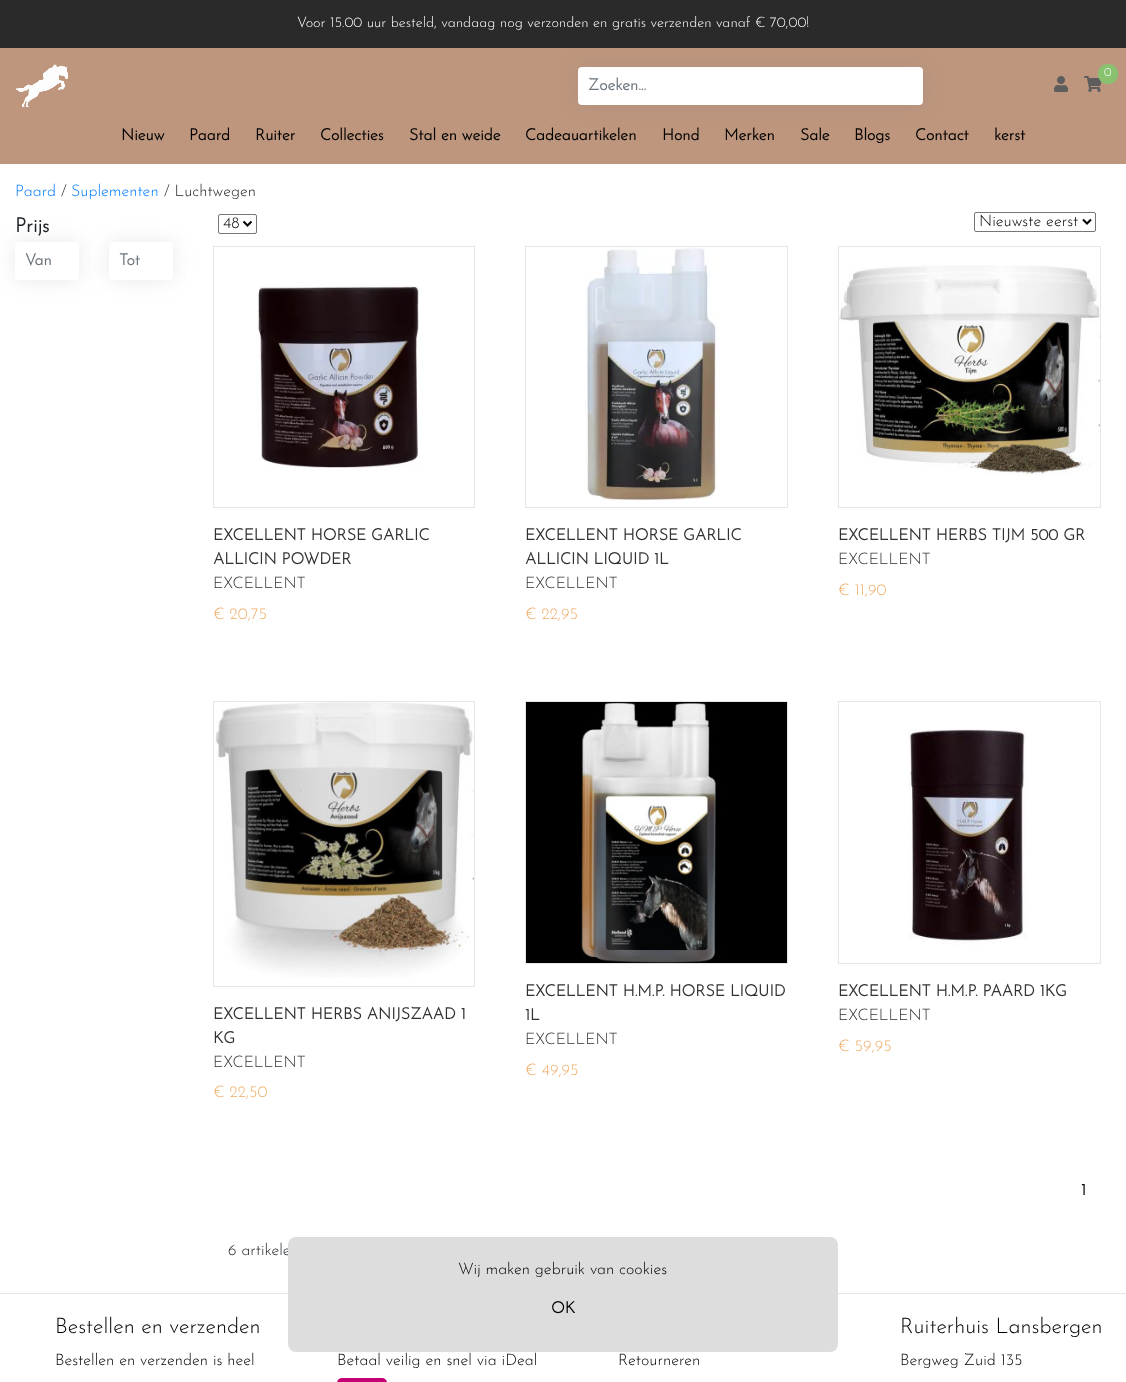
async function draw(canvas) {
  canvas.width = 1126
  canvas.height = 1382
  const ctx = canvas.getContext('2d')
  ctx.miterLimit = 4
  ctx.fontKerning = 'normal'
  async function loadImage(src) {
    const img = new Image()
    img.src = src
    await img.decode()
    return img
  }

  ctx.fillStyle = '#fff'
  ctx.fillRect(0, 0, 1126, 1382)
  ctx.fillStyle = '#2a2a2a'
  ctx.fillRect(0, 0, 1126, 48)
  ctx.font = '300 14.4px Josefin Sans'
  ctx.fillStyle = '#fff'
  ctx.fillText('Voor 15.00 uur besteld, vandaag nog verzonden en gratis verzenden vanaf € 70,00!', 297, 27)
  ctx.fillStyle = '#be967d'
  ctx.fillRect(0, 48, 1126, 116)
  ctx.drawImage(await loadImage('image0.png'), 15, 64, 53, 43)
  ctx.drawImage(await loadImage('image1.png'), 1084, 76, 18, 16)
  ctx.fillStyle = '#88c26f'
  ctx.beginPath()
  ctx.roundRect(1098, 64, 20, 20, 9)
  ctx.fill()
  ctx.font = '300 12px Josefin Sans'
  ctx.fillStyle = '#fff'
  ctx.fillText('0', 1104, 76)
  ctx.drawImage(await loadImage('image2.png'), 1054, 76, 14, 16)
  ctx.fillStyle = '#696e8629'
  ctx.filter = 'blur(10px)'
  ctx.beginPath()
  ctx.roundRect(578, 67, 345, 38, 4)
  ctx.fill()
  ctx.filter = 'none'
  ctx.fillStyle = '#fff'
  ctx.beginPath()
  ctx.roundRect(578, 67, 345, 38, 4)
  ctx.fill()
  ctx.font = 'bold 16px Josefin Sans'
  ctx.fillStyle = '#6c757d'
  ctx.fillText('Zoeken...', 588, 90)
  ctx.fillStyle = '#000'
  ctx.fillText('Nieuw', 121, 140)
  ctx.fillText('Paard', 189, 140)
  ctx.fillText('Ruiter', 255, 140)
  ctx.fillText('Collecties', 320, 140)
  ctx.fillText('Stal en weide', 409, 140)
  ctx.fillText('Cadeauartikelen', 525, 140)
  ctx.fillText('Hond', 662, 140)
  ctx.fillText('Merken', 724, 140)
  ctx.fillText('Sale', 800, 140)
  ctx.fillText('Blogs', 854, 140)
  ctx.fillText('Contact', 915, 140)
  ctx.fillText('kerst', 994, 140)
  ctx.font = '300 16px Josefin Sans'
  ctx.fillStyle = '#007bff'
  ctx.fillText('Paard', 15, 196)
  ctx.fillStyle = '#212529'
  ctx.fillText('/', 61, 196)
  ctx.fillStyle = '#007bff'
  ctx.fillText('Suplementen', 71, 196)
  ctx.fillStyle = '#212529'
  ctx.fillText('/ Luchtwegen', 164, 196)
  ctx.font = 'bold 20px Josefin Sans'
  ctx.fillText('Prijs', 15, 232)
  ctx.fillStyle = '#696e8629'
  ctx.filter = 'blur(10px)'
  ctx.beginPath()
  ctx.roundRect(15, 242, 64, 38, 4)
  ctx.fill()
  ctx.filter = 'none'
  ctx.fillStyle = '#fff'
  ctx.beginPath()
  ctx.roundRect(15, 242, 64, 38, 4)
  ctx.fill()
  ctx.font = 'bold 16px Josefin Sans'
  ctx.fillStyle = '#6c757d'
  ctx.fillText('Van', 25, 265)
  ctx.fillStyle = '#696e8629'
  ctx.filter = 'blur(10px)'
  ctx.beginPath()
  ctx.roundRect(109, 242, 64, 38, 4)
  ctx.fill()
  ctx.filter = 'none'
  ctx.fillStyle = '#fff'
  ctx.beginPath()
  ctx.roundRect(109, 242, 64, 38, 4)
  ctx.fill()
  ctx.fillStyle = '#6c757d'
  ctx.fillText('Tot', 119, 265)
  ctx.beginPath()
  ctx.roundRect(218.5, 214.5, 38, 19, 1.5)
  ctx.strokeStyle = '#767676'
  ctx.stroke()
  ctx.beginPath()
  ctx.moveTo(243.5, 221.5)
  ctx.lineTo(247.5, 225.5)
  ctx.lineTo(251.5, 221.5)
  ctx.strokeStyle = '#000'
  ctx.lineWidth = 2
  ctx.stroke()
  ctx.font = '300 16px Josefin Sans'
  ctx.fillStyle = '#000'
  ctx.fillText('48', 223, 228)
  ctx.beginPath()
  ctx.roundRect(974.5, 212.5, 121, 19, 1.5)
  ctx.strokeStyle = '#767676'
  ctx.lineWidth = 1
  ctx.stroke()
  ctx.beginPath()
  ctx.moveTo(1083, 219.5)
  ctx.lineTo(1087, 223.5)
  ctx.lineTo(1091, 219.5)
  ctx.strokeStyle = '#000'
  ctx.lineWidth = 2
  ctx.stroke()
  ctx.fillText('Nieuwste eerst', 979, 226)
  ctx.strokeStyle = '#e6e6e6'
  ctx.lineWidth = 1
  ctx.strokeRect(213.5, 246.5, 261, 261)
  ctx.drawImage(await loadImage('image3.png'), 256, 285, 166, 184)
  ctx.font = 'bold 16px Josefin Sans'
  ctx.fillStyle = '#323232'
  ctx.fillText('EXCELLENT HORSE GARLIC', 213, 540)
  ctx.fillText('ALLICIN POWDER', 213, 564)
  ctx.font = '300 16px Josefin Sans'
  ctx.fillText('EXCELLENT', 213, 588)
  ctx.fillStyle = '#efad68'
  ctx.fillText('€ 20,75', 213, 619)
  ctx.strokeRect(525.5, 246.5, 262, 261)
  ctx.drawImage(await loadImage('image4.png'), 585, 247, 136, 254)
  ctx.font = 'bold 16px Josefin Sans'
  ctx.fillStyle = '#323232'
  ctx.fillText('EXCELLENT HORSE GARLIC', 525, 540)
  ctx.fillText('ALLICIN LIQUID 1L', 525, 564)
  ctx.font = '300 16px Josefin Sans'
  ctx.fillText('EXCELLENT', 525, 588)
  ctx.fillStyle = '#efad68'
  ctx.fillText('€ 22,95', 525, 619)
  ctx.strokeRect(838.5, 246.5, 262, 261)
  ctx.drawImage(await loadImage('image5.png'), 839, 265, 261, 211)
  ctx.font = 'bold 16px Josefin Sans'
  ctx.fillStyle = '#323232'
  ctx.fillText('EXCELLENT HERBS TIJM 500 GR', 838, 540)
  ctx.font = '300 16px Josefin Sans'
  ctx.fillText('EXCELLENT', 838, 564)
  ctx.fillStyle = '#efad68'
  ctx.fillText('€ 11,90', 838, 595)
  ctx.strokeRect(213.5, 701.5, 261, 285)
  ctx.drawImage(await loadImage('image6.png'), 215, 702, 259, 276)
  ctx.font = 'bold 16px Josefin Sans'
  ctx.fillStyle = '#323232'
  ctx.fillText('EXCELLENT HERBS ANIJSZAAD 1', 213, 1019)
  ctx.fillText('KG', 213, 1043)
  ctx.font = '300 16px Josefin Sans'
  ctx.fillText('EXCELLENT', 213, 1067)
  ctx.fillStyle = '#efad68'
  ctx.fillText('€ 22,50', 213, 1097)
  ctx.strokeRect(525.5, 701.5, 262, 262)
  ctx.drawImage(await loadImage('image7.png'), 526, 702, 261, 261)
  ctx.font = 'bold 16px Josefin Sans'
  ctx.fillStyle = '#323232'
  ctx.fillText('EXCELLENT H.M.P. HORSE LIQUID', 525, 996)
  ctx.fillText('1L', 525, 1020)
  ctx.font = '300 16px Josefin Sans'
  ctx.fillText('EXCELLENT', 525, 1044)
  ctx.fillStyle = '#efad68'
  ctx.fillText('€ 49,95', 525, 1075)
  ctx.strokeRect(838.5, 701.5, 262, 262)
  ctx.drawImage(await loadImage('image8.png'), 908, 729, 119, 216)
  ctx.font = 'bold 16px Josefin Sans'
  ctx.fillStyle = '#323232'
  ctx.fillText('EXCELLENT H.M.P. PAARD 1KG', 838, 996)
  ctx.font = '300 16px Josefin Sans'
  ctx.fillText('EXCELLENT', 838, 1020)
  ctx.fillStyle = '#efad68'
  ctx.fillText('€ 59,95', 838, 1051)
  ctx.font = 'bold 16px Josefin Sans'
  ctx.fillStyle = '#000'
  ctx.fillText('1', 1081, 1195)
  ctx.font = '300 16px Josefin Sans'
  ctx.fillStyle = '#212529'
  ctx.fillText('6 artikele', 228, 1255)
  ctx.fillStyle = '#e6e6e6'
  ctx.fillRect(0, 1293, 1126, 1)
  ctx.fillStyle = '#ddd'
  ctx.beginPath()
  ctx.roundRect(288, 1237, 550, 115, 8)
  ctx.fill()
  ctx.fillStyle = '#000'
  ctx.fillText('Wij maken gebruik van cookies', 458, 1274)
  ctx.font = 'bold 16px Josefin Sans'
  ctx.fillText('OK', 551, 1313)
  ctx.font = '300 21.5px Josefin Sans'
  ctx.fillText('Bestellen en verzenden', 55, 1333)
  ctx.font = '300 16px Josefin Sans'
  ctx.fillText('Bestellen en verzenden is heel', 55, 1365)
  ctx.fillText('Betaal veilig en snel via iDeal', 337, 1365)
  ctx.drawImage(await loadImage('image9.png'), 337, 1378, 50, 4)
  ctx.fillText('Retourneren', 618, 1365)
  ctx.font = '300 21.5px Josefin Sans'
  ctx.fillText('Ruiterhuis Lansbergen', 900, 1333)
  ctx.font = '300 16px Josefin Sans'
  ctx.fillText('Bergweg Zuid 135', 900, 1365)
}

draw(document.querySelector('canvas'))
